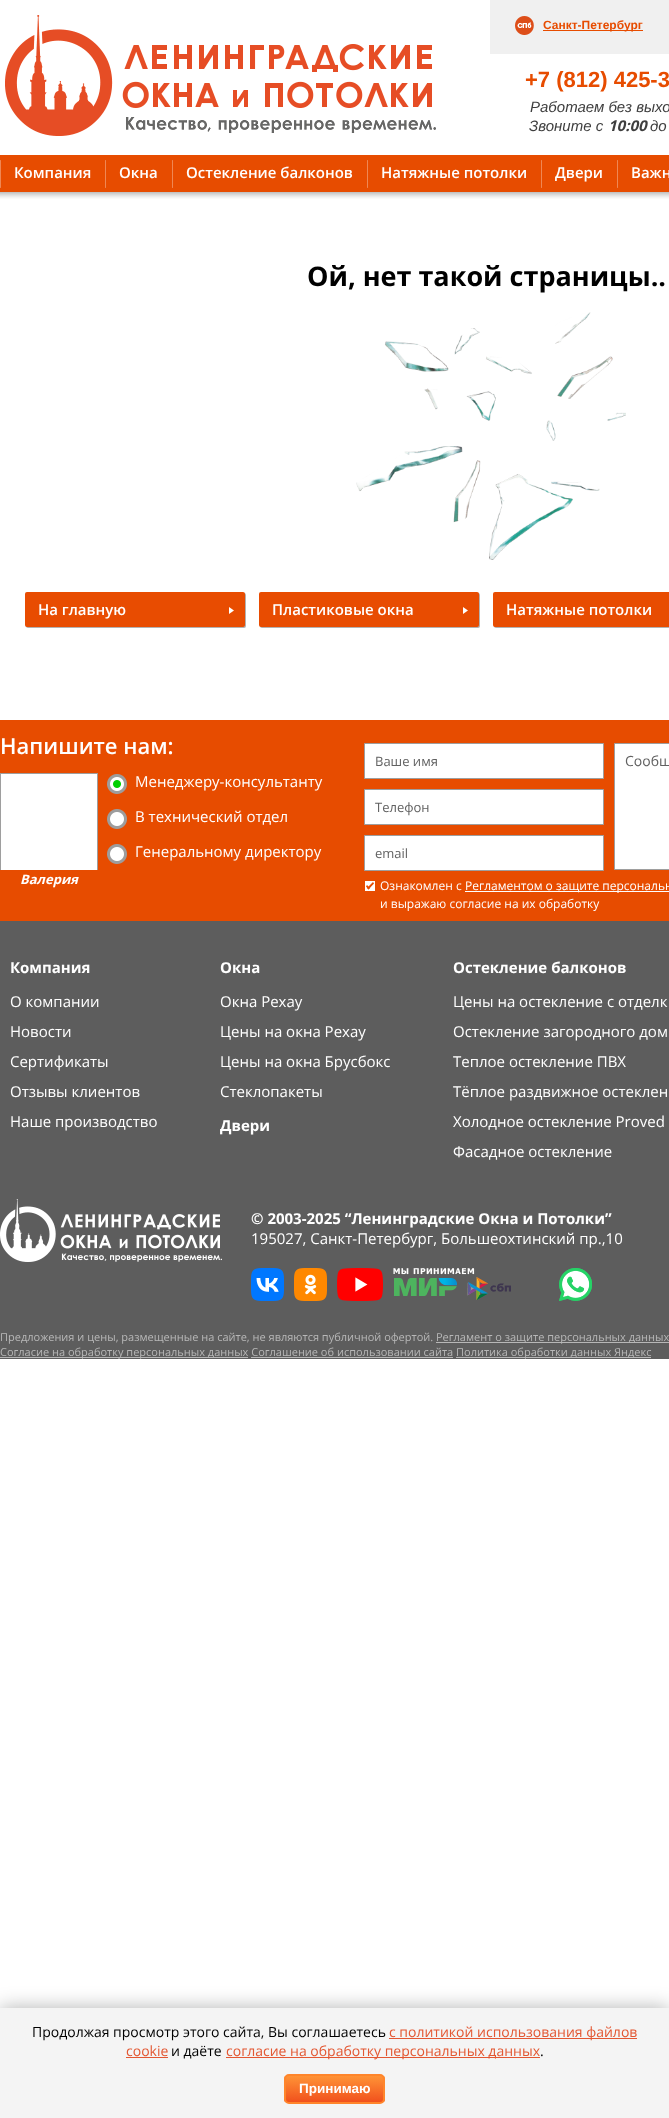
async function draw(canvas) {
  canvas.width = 669
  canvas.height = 2118
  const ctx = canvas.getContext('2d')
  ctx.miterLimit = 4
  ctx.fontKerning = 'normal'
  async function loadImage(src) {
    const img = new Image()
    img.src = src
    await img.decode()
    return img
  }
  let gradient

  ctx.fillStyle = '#fff'
  ctx.fillRect(0, 0, 669, 2118)
  ctx.drawImage(await loadImage('image0.png'), 5, 15, 431, 121)
  ctx.fillStyle = '#f0f0f0'
  ctx.fillRect(490, 0, 179, 54)
  ctx.drawImage(await loadImage('image1.png'), 515, 16, 19, 19)
  ctx.fillStyle = '#e74c00'
  ctx.fillRect(543, 30, 100, 1)
  ctx.font = 'bold 12px Liberation Sans'
  ctx.fillText('Санкт-Петербург', 543, 29)
  ctx.font = 'bold 22px Liberation Sans'
  ctx.fillText('+7 (812) 425-3', 525, 87)
  ctx.font = 'italic 15px Liberation Sans'
  ctx.fillStyle = '#3e3e3e'
  ctx.fillText('Работаем без выхо', 530, 112)
  ctx.fillText('Звоните с', 529, 131)
  ctx.font = 'italic bold 15px Open Sans'
  ctx.fillText('10:00', 608, 131)
  ctx.font = 'italic 15px Liberation Sans'
  ctx.fillText('до', 650, 131)
  ctx.drawImage(await loadImage('image2.png'), 0, 155, 669, 44)
  ctx.drawImage(await loadImage('image3.png'), 0, 160, 1, 28)
  ctx.font = '600 15px Open Sans'
  ctx.fillStyle = '#fff'
  ctx.fillText('Компания', 14, 178)
  ctx.drawImage(await loadImage('image3.png'), 105, 160, 1, 28)
  ctx.fillText('Окна', 119, 178)
  ctx.drawImage(await loadImage('image3.png'), 172, 160, 1, 28)
  ctx.fillText('Остекление балконов', 186, 178)
  ctx.drawImage(await loadImage('image3.png'), 367, 160, 1, 28)
  ctx.fillText('Натяжные потолки', 381, 178)
  ctx.drawImage(await loadImage('image3.png'), 541, 160, 1, 28)
  ctx.fillText('Двери', 555, 178)
  ctx.drawImage(await loadImage('image3.png'), 617, 160, 1, 28)
  ctx.fillText('Важн', 631, 178)
  ctx.font = 'bold 27px Open Sans'
  ctx.fillStyle = '#000'
  ctx.fillText('Ой, нет такой страницы..', 307, 286)
  ctx.drawImage(await loadImage('image4.png'), 356, 312, 270, 248)
  ctx.fillStyle = '#0000004d'
  ctx.filter = 'blur(0.5px)'
  ctx.beginPath()
  ctx.roundRect(26, 593, 220, 35, 2)
  ctx.fill()
  ctx.filter = 'none'
  ctx.fillStyle = '#e84c01'
  ctx.beginPath()
  ctx.roundRect(25, 592, 220, 35, 2)
  ctx.fill()
  ctx.drawImage(await loadImage('image5.png'), 229, 607, 5, 7)
  ctx.font = '600 15px Open Sans'
  ctx.fillStyle = '#fff'
  ctx.fillText('На главную', 38, 615)
  ctx.fillStyle = '#0000004d'
  ctx.filter = 'blur(0.5px)'
  ctx.beginPath()
  ctx.roundRect(260, 593, 220, 35, 2)
  ctx.fill()
  ctx.filter = 'none'
  ctx.fillStyle = '#e84c01'
  ctx.beginPath()
  ctx.roundRect(259, 592, 220, 35, 2)
  ctx.fill()
  ctx.drawImage(await loadImage('image5.png'), 463, 607, 5, 7)
  ctx.fillStyle = '#fff'
  ctx.fillText('Пластиковые окна', 272, 615)
  ctx.fillStyle = '#0000004d'
  ctx.filter = 'blur(0.5px)'
  ctx.beginPath()
  ctx.roundRect(494, 593, 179, 35, 2)
  ctx.fill()
  ctx.filter = 'none'
  ctx.fillStyle = '#e84c01'
  ctx.beginPath()
  ctx.roundRect(493, 592, 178, 35, 2)
  ctx.fill()
  ctx.fillStyle = '#fff'
  ctx.fillText('Натяжные потолки', 506, 615)
  ctx.fillStyle = '#e74c00'
  ctx.fillRect(0, 720, 669, 201)
  ctx.font = '600 22px Open Sans'
  ctx.fillStyle = '#fff'
  ctx.fillText('Напишите нам:', 0, 754)
  ctx.drawImage(await loadImage('image6.png'), 107, 774, 20, 20)
  ctx.font = '15px Open Sans'
  ctx.fillText('Менеджеру-консультанту', 135, 787)
  ctx.drawImage(await loadImage('image7.png'), 107, 809, 20, 20)
  ctx.fillText('В технический отдел', 135, 822)
  ctx.drawImage(await loadImage('image7.png'), 107, 844, 20, 20)
  ctx.fillText('Генеральному директору', 135, 857)
  ctx.strokeStyle = '#9e9e9e'
  ctx.strokeRect(0.5, 773.5, 97, 97)
  ctx.fillStyle = '#e74c00'
  ctx.fillRect(0, 870, 98, 1)
  ctx.fillStyle = '#fff'
  ctx.fillRect(1, 774, 96, 96)
  ctx.font = 'italic bold 13px Open Sans'
  ctx.fillText('Валерия', 20, 884)
  ctx.beginPath()
  ctx.rect(364.5, 743.5, 239, 35)
  ctx.fill()
  ctx.stroke()
  ctx.font = '13px Open Sans'
  ctx.fillStyle = '#616161'
  ctx.fillText('Ваше имя', 375, 766)
  ctx.fillStyle = '#fff'
  ctx.beginPath()
  ctx.rect(364.5, 789.5, 239, 35)
  ctx.fill()
  ctx.stroke()
  ctx.fillStyle = '#616161'
  ctx.fillText('Телефон', 375, 812)
  ctx.fillStyle = '#fff'
  ctx.beginPath()
  ctx.rect(364.5, 835.5, 239, 35)
  ctx.fill()
  ctx.stroke()
  ctx.fillStyle = '#616161'
  ctx.fillText('email', 375, 858)
  ctx.fillStyle = '#fff'
  ctx.beginPath()
  ctx.rect(614.5, 743.5, 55, 126)
  ctx.fill()
  ctx.stroke()
  ctx.font = '14px Open Sans'
  ctx.fillStyle = '#616161'
  ctx.fillText('Сообщ', 625, 766)
  ctx.fillStyle = '#fff'
  ctx.fillRect(365, 881, 10, 10)
  ctx.fillStyle = '#e64a00'
  ctx.beginPath()
  ctx.moveTo(367, 888)
  ctx.lineTo(373, 882)
  ctx.lineTo(374, 883.5)
  ctx.lineTo(368.5, 889.5)
  ctx.closePath()
  ctx.fill()
  ctx.beginPath()
  ctx.moveTo(366, 886.5)
  ctx.lineTo(367, 885)
  ctx.lineTo(370, 888)
  ctx.lineTo(368.5, 889.5)
  ctx.closePath()
  ctx.fill()
  ctx.font = '12px Open Sans'
  ctx.fillStyle = '#fff'
  ctx.fillText('Ознакомлен с', 380, 890)
  ctx.fillRect(465, 891, 204, 1)
  ctx.fillText('Регламентом о защите персональн', 465, 890)
  ctx.fillText('и выражаю согласие на их обработку', 380, 908)
  ctx.fillStyle = '#5d5d5d'
  ctx.fillRect(0, 921, 669, 438)
  ctx.font = 'bold 15px Open Sans'
  ctx.fillStyle = '#fff'
  ctx.fillText('Компания', 10, 973)
  ctx.font = '15px Open Sans'
  ctx.fillText('О компании', 10, 1007)
  ctx.fillText('Новости', 10, 1037)
  ctx.fillText('Сертификаты', 10, 1067)
  ctx.fillText('Отзывы клиентов', 10, 1097)
  ctx.fillText('Наше производство', 10, 1127)
  ctx.font = 'bold 15px Open Sans'
  ctx.fillText('Окна', 220, 973)
  ctx.font = '15px Open Sans'
  ctx.fillText('Окна Рехау', 220, 1007)
  ctx.fillText('Цены на окна Рехау', 220, 1037)
  ctx.fillText('Цены на окна Брусбокс', 220, 1067)
  ctx.fillText('Стеклопакеты', 220, 1097)
  ctx.font = 'bold 15px Open Sans'
  ctx.fillText('Двери', 220, 1131)
  ctx.fillText('Остекление балконов', 453, 973)
  ctx.font = '15px Open Sans'
  ctx.fillText('Цены на остекление с отделк', 453, 1007)
  ctx.fillText('Остекление загородного дом', 453, 1037)
  ctx.fillText('Теплое остекление ПВХ', 453, 1067)
  ctx.fillText('Тёплое раздвижное остеклен', 453, 1097)
  ctx.fillText('Холодное остекление Proved', 453, 1127)
  ctx.fillText('Фасадное остекление', 453, 1157)
  ctx.drawImage(await loadImage('image8.png'), 0, 1199, 222, 63)
  ctx.font = 'bold 15px Open Sans'
  ctx.fillText('© 2003-2025 “Ленинградские Окна и Потолки”', 251, 1224)
  ctx.font = '15px Open Sans'
  ctx.fillText('195027, Санкт-Петербург, Большеохтинский пр.,10', 251, 1244)
  ctx.drawImage(await loadImage('image9.png'), 251, 1268, 33, 33)
  ctx.drawImage(await loadImage('image10.png'), 294, 1268, 33, 33)
  ctx.drawImage(await loadImage('image11.png'), 337, 1268, 46, 33)
  ctx.drawImage(await loadImage('image12.png'), 393, 1268, 118, 32)
  ctx.drawImage(await loadImage('image13.png'), 559, 1268, 33, 33)
  ctx.font = '11px Open Sans'
  ctx.fillStyle = '#b7b7b7'
  ctx.fillText('Предложения и цены, размещенные на сайте, не являются публичной офертой.', 0, 1341)
  ctx.fillRect(436, 1342, 233, 1)
  ctx.fillText('Регламент о защите персональных данных', 436, 1341)
  ctx.fillRect(0, 1357, 248, 1)
  ctx.fillText('Согласие на обработку персональных данных Cоглашение об использовании сайта', 0, 1356)
  ctx.fillRect(456, 1357, 195, 1)
  ctx.fillText('Политика обработки данных Яндекс', 456, 1356)
  ctx.fillRect(251, 1357, 202, 1)
  ctx.fillStyle = '#0000004d'
  ctx.filter = 'blur(10px)'
  ctx.beginPath()
  ctx.rect(0, 2008, 669, 110)
  ctx.fill()
  ctx.filter = 'none'
  ctx.fillStyle = '#f4f4f4'
  ctx.fillRect(0, 2008, 669, 110)
  ctx.font = '14px Open Sans'
  ctx.fillStyle = '#000'
  ctx.fillText('Продолжая просмотр этого сайта, Вы соглашаетесь', 32, 2037)
  ctx.fillStyle = '#e35732'
  ctx.fillRect(389, 2038, 248, 1)
  ctx.fillText('с политикой использования файлов', 389, 2037)
  ctx.fillText('cookie', 126, 2056)
  ctx.fillRect(126, 2057, 42, 1)
  ctx.fillStyle = '#000'
  ctx.fillText('и даёте', 171, 2056)
  ctx.fillStyle = '#e35732'
  ctx.fillRect(226, 2057, 314, 1)
  ctx.fillText('согласие на обработку персональных данных', 226, 2056)
  ctx.fillStyle = '#000'
  ctx.fillText('.', 540, 2056)
  ctx.save()
  ctx.beginPath()
  ctx.roundRect(284, 2074, 101, 30, 5)
  ctx.clip()
  gradient = ctx.createLinearGradient(335, 2076, 335, 2102)
  gradient.addColorStop(0, '#ff9336')
  gradient.addColorStop(1, '#f1511d')
  ctx.fillStyle = gradient
  ctx.fillRect(284, 2076, 101, 26)
  ctx.restore()
  ctx.beginPath()
  ctx.roundRect(285, 2075, 99, 28, 4)
  ctx.strokeStyle = '#ff852b'
  ctx.lineWidth = 2
  ctx.stroke()
  ctx.font = 'bold 13.5px Liberation Sans'
  ctx.fillStyle = '#fff'
  ctx.fillText('Принимаю', 299, 2093)
}

draw(document.querySelector('canvas'))
